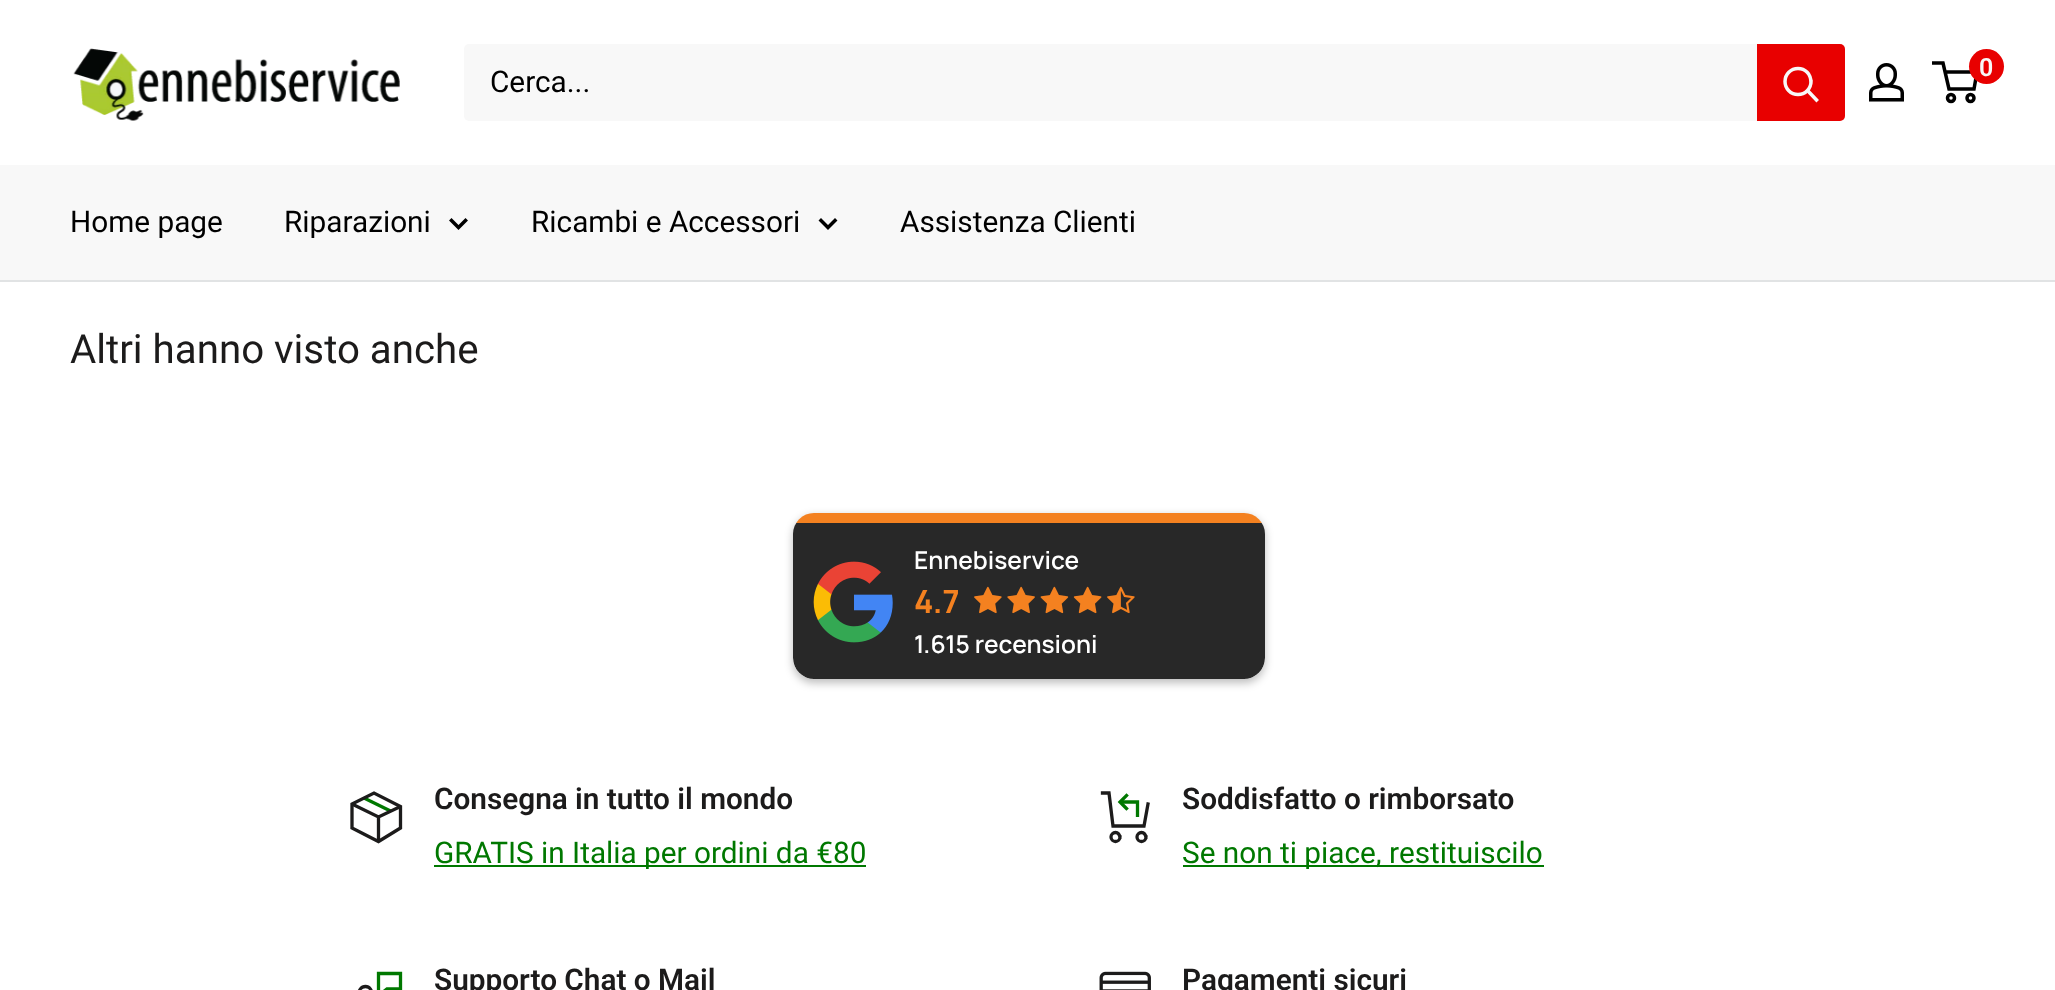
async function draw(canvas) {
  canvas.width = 2055
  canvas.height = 990
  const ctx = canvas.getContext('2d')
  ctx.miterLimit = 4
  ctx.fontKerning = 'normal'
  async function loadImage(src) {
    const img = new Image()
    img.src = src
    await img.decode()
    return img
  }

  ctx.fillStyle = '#fff'
  ctx.fillRect(0, 0, 2055, 990)
  ctx.drawImage(await loadImage('image0.png'), 73, 48, 327, 73)
  ctx.drawImage(await loadImage('image1.png'), 1869, 63, 35, 39)
  ctx.beginPath()
  ctx.arc(1951, 98, 3.5, 0, 2 * Math.PI)
  ctx.strokeStyle = '#000'
  ctx.lineWidth = 3.5
  ctx.stroke()
  ctx.beginPath()
  ctx.arc(1970.5, 98, 3.5, 0, 2 * Math.PI)
  ctx.stroke()
  ctx.beginPath()
  ctx.moveTo(1945, 72)
  ctx.lineTo(1977, 72)
  ctx.lineTo(1974, 89)
  ctx.lineTo(1949, 89)
  ctx.lineTo(1943, 63)
  ctx.lineTo(1932, 63)
  ctx.stroke()
  ctx.fillStyle = '#e80000'
  ctx.beginPath()
  ctx.arc(1986.5, 66.5, 17.5, 0, 2 * Math.PI)
  ctx.fill()
  ctx.font = '600 25px Roboto'
  ctx.fillStyle = '#f8f8f8'
  ctx.fillText('0', 1979, 76)
  ctx.beginPath()
  ctx.roundRect(464, 44, 1381, 77, 5)
  ctx.fill()
  ctx.font = '29.75px Roboto'
  ctx.fillStyle = '#000'
  ctx.fillText('Cerca...', 490, 92)
  ctx.fillStyle = '#e80000'
  ctx.beginPath()
  ctx.roundRect(1757, 44, 88, 77, [0, 5, 5, 0])
  ctx.fill()
  ctx.beginPath()
  ctx.moveTo(1816.5, 100)
  ctx.lineTo(1808, 91)
  ctx.strokeStyle = '#f8f8f8'
  ctx.lineCap = 'square'
  ctx.stroke()
  ctx.beginPath()
  ctx.arc(1798, 81.5, 13, 0, 2 * Math.PI)
  ctx.stroke()
  ctx.fillStyle = '#f8f8f8'
  ctx.fillRect(0, 165, 2055, 115)
  ctx.fillStyle = '#e1e3e4'
  ctx.fillRect(0, 280, 2055, 2)
  ctx.fillStyle = '#000'
  ctx.fillText('Home page', 70, 232)
  ctx.fillText('Riparazioni', 284, 232)
  ctx.beginPath()
  ctx.moveTo(465.5, 220.5)
  ctx.lineTo(458.5, 227.5)
  ctx.lineTo(451.5, 220.5)
  ctx.strokeStyle = '#000'
  ctx.stroke()
  ctx.fillText('Ricambi e Accessori', 531, 232)
  ctx.beginPath()
  ctx.moveTo(835, 220.5)
  ctx.lineTo(828, 227.5)
  ctx.lineTo(821, 220.5)
  ctx.stroke()
  ctx.fillText('Assistenza Clienti', 900, 232)
  ctx.font = '40.25px Roboto'
  ctx.fillStyle = '#1c1b1b'
  ctx.fillText('Altri hanno visto anche', 70, 363)
  ctx.fillStyle = '#00000042'
  ctx.filter = 'blur(4.5px)'
  ctx.beginPath()
  ctx.roundRect(793, 516, 472, 167, 21)
  ctx.fill()
  ctx.filter = 'none'
  ctx.save()
  ctx.beginPath()
  ctx.roundRect(793, 513, 472, 166, 21)
  ctx.clip()
  ctx.fillStyle = '#f48120'
  ctx.fillRect(796, 513, 466, 10)
  ctx.fillStyle = '#282828'
  ctx.beginPath()
  ctx.roundRect(793, 523, 472, 156, [0, 0, 21, 21])
  ctx.fill()
  ctx.restore()
  ctx.drawImage(await loadImage('image2.png'), 813, 561, 80, 82)
  ctx.font = '600 24.5px Manrope'
  ctx.fillStyle = '#fff'
  ctx.fillText('Ennebiservice', 914, 569)
  ctx.font = 'bold 32px Manrope'
  ctx.fillStyle = '#f48120'
  ctx.fillText('4.7', 914, 613)
  ctx.drawImage(await loadImage('image3.png'), 974, 586, 28, 28)
  ctx.drawImage(await loadImage('image4.png'), 1007, 586, 28, 28)
  ctx.drawImage(await loadImage('image5.png'), 1040, 586, 29, 28)
  ctx.drawImage(await loadImage('image6.png'), 1073, 586, 29, 28)
  ctx.drawImage(await loadImage('image7.png'), 1107, 586, 28, 28)
  ctx.font = '600 24.5px Manrope'
  ctx.fillStyle = '#fff'
  ctx.fillText('1.615 recensioni', 914, 653)
  ctx.beginPath()
  ctx.moveTo(364, 798)
  ctx.lineTo(390.5, 811)
  ctx.strokeStyle = '#007800'
  ctx.lineWidth = 3.3
  ctx.lineCap = 'butt'
  ctx.stroke()
  ctx.beginPath()
  ctx.moveTo(400.5, 806.5)
  ctx.lineTo(378.5, 817)
  ctx.lineTo(352, 804)
  ctx.moveTo(378.5, 817)
  ctx.lineTo(378.5, 841.5)
  ctx.strokeStyle = '#1c1b1b'
  ctx.stroke()
  ctx.beginPath()
  ctx.moveTo(400.5, 806.5)
  ctx.lineTo(400.5, 828)
  ctx.lineTo(378.5, 841.5)
  ctx.lineTo(352, 828)
  ctx.lineTo(352, 804)
  ctx.lineTo(374, 793)
  ctx.closePath()
  ctx.lineCap = 'square'
  ctx.stroke()
  ctx.font = '600 29.75px Roboto'
  ctx.fillStyle = '#1c1b1b'
  ctx.fillText('Consegna in tutto il mondo', 434, 809)
  ctx.fillStyle = '#007800'
  ctx.fillRect(434, 865, 432, 2)
  ctx.font = '29.75px Roboto'
  ctx.fillText('GRATIS in Italia per ordini da €80', 434, 863)
  ctx.beginPath()
  ctx.moveTo(1120, 802)
  ctx.lineTo(1137.5, 802)
  ctx.lineTo(1137.5, 817)
  ctx.strokeStyle = '#007800'
  ctx.lineCap = 'butt'
  ctx.stroke()
  ctx.beginPath()
  ctx.moveTo(1126.5, 808.5)
  ctx.lineTo(1120, 802)
  ctx.lineTo(1126.5, 795.5)
  ctx.lineCap = 'square'
  ctx.stroke()
  ctx.beginPath()
  ctx.moveTo(1148, 804)
  ctx.lineTo(1144, 826)
  ctx.lineTo(1113, 826)
  ctx.lineTo(1109, 793)
  ctx.lineTo(1102.5, 793)
  ctx.strokeStyle = '#1c1b1b'
  ctx.stroke()
  ctx.beginPath()
  ctx.arc(1115.5, 837, 4.5, 0, 2 * Math.PI)
  ctx.stroke()
  ctx.beginPath()
  ctx.arc(1141.5, 837, 4.5, 0, 2 * Math.PI)
  ctx.stroke()
  ctx.font = '600 29.75px Roboto'
  ctx.fillStyle = '#1c1b1b'
  ctx.fillText('Soddisfatto o rimborsato', 1182, 809)
  ctx.fillStyle = '#007800'
  ctx.fillRect(1183, 865, 361, 2)
  ctx.font = '29.75px Roboto'
  ctx.fillText('Se non ti piace, restituiscilo', 1182, 863)
  ctx.beginPath()
  ctx.moveTo(372, 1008.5)
  ctx.lineTo(359, 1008.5)
  ctx.bezierCurveTo(355, 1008.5, 352, 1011.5, 352, 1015)
  ctx.lineTo(352, 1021.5)
  ctx.lineTo(378.5, 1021.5)
  ctx.bezierCurveTo(378.5, 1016.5, 379.5, 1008.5, 372, 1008.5)
  ctx.closePath()
  ctx.moveTo(365.5, 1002)
  ctx.bezierCurveTo(356.5, 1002, 356.5, 986.5, 365.5, 986.5)
  ctx.bezierCurveTo(374, 986.5, 374, 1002, 365.5, 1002)
  ctx.closePath()
  ctx.stroke()
  ctx.beginPath()
  ctx.moveTo(378.5, 973.5)
  ctx.lineTo(378.5, 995.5)
  ctx.lineTo(387, 989)
  ctx.lineTo(400.5, 989)
  ctx.lineTo(400.5, 973.5)
  ctx.closePath()
  ctx.strokeStyle = '#007800'
  ctx.stroke()
  ctx.font = '600 29.75px Roboto'
  ctx.fillStyle = '#1c1b1b'
  ctx.fillText('Supporto Chat o Mail', 434, 990)
  ctx.drawImage(await loadImage('image8.png'), 1099, 971, 52, 19)
  ctx.fillText('Pagamenti sicuri', 1182, 990)
}

draw(document.querySelector('canvas'))
